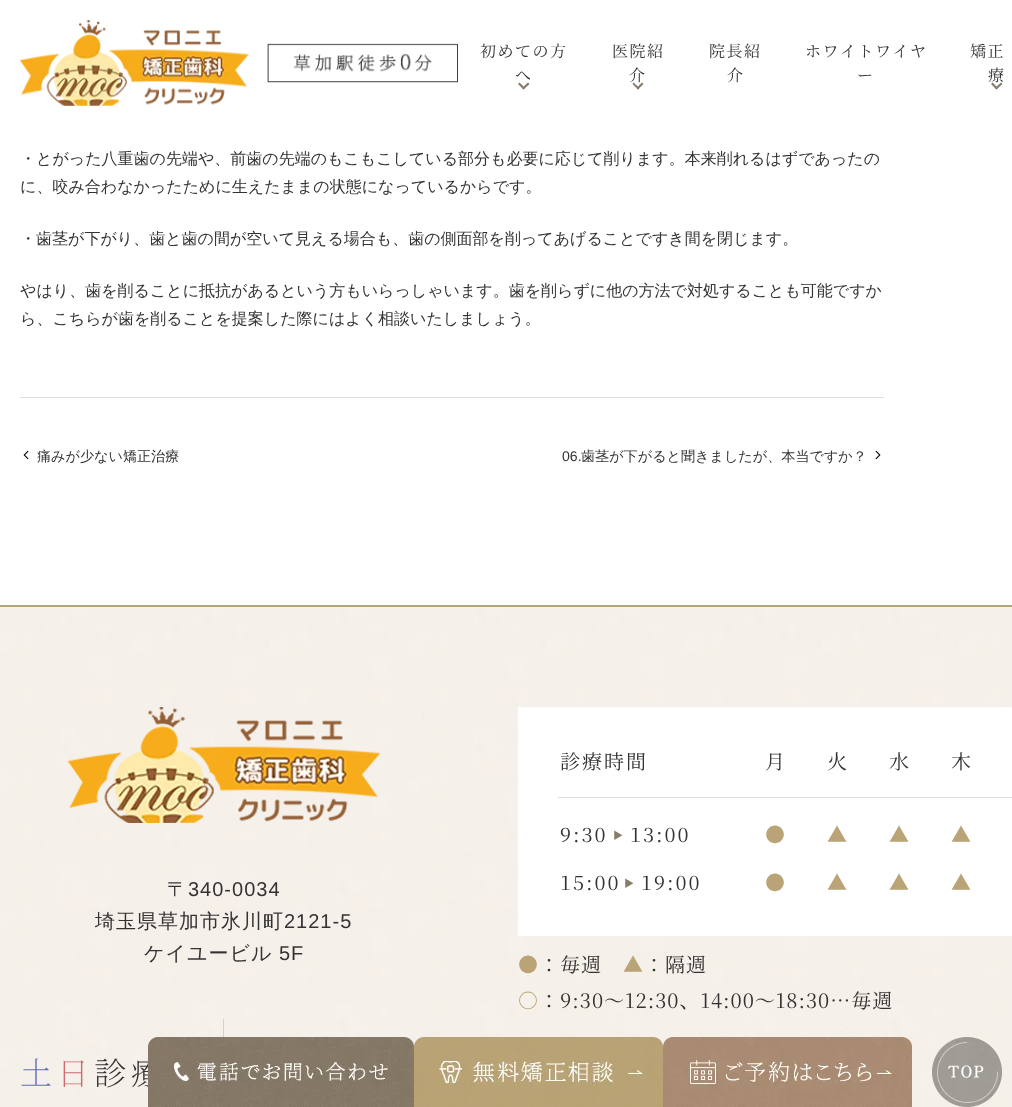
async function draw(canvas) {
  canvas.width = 1012
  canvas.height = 1107
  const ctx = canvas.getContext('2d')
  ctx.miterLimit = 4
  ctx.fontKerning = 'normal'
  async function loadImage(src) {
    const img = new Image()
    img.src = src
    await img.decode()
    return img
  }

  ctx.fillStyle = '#fff'
  ctx.fillRect(0, 0, 1012, 1107)
  ctx.drawImage(await loadImage('image0.png'), 20, 20, 438, 86)
  ctx.letterSpacing = '1.5px'
  ctx.font = '16px Noto Serif JP'
  ctx.fillStyle = '#333'
  ctx.fillText('初めての方', 480, 57)
  ctx.fillText('へ', 515, 81)
  ctx.fillStyle = '#877b69'
  ctx.beginPath()
  ctx.moveTo(528, 82.5)
  ctx.lineTo(529.5, 84)
  ctx.lineTo(523.5, 89.5)
  ctx.lineTo(522, 88)
  ctx.closePath()
  ctx.fill()
  ctx.beginPath()
  ctx.moveTo(519.5, 82.5)
  ctx.lineTo(525, 88)
  ctx.lineTo(523.5, 89.5)
  ctx.lineTo(518, 84)
  ctx.closePath()
  ctx.fill()
  ctx.fillStyle = '#333'
  ctx.fillText('医院紹', 612, 57)
  ctx.fillText('介', 629, 81)
  ctx.fillStyle = '#877b69'
  ctx.beginPath()
  ctx.moveTo(642, 82.5)
  ctx.lineTo(643.5, 84)
  ctx.lineTo(638, 89.5)
  ctx.lineTo(636.5, 88)
  ctx.closePath()
  ctx.fill()
  ctx.beginPath()
  ctx.moveTo(633.5, 82.5)
  ctx.lineTo(639.5, 88)
  ctx.lineTo(638, 89.5)
  ctx.lineTo(632.5, 84)
  ctx.closePath()
  ctx.fill()
  ctx.fillStyle = '#333'
  ctx.fillText('院長紹', 709, 57)
  ctx.fillText('介', 727, 81)
  ctx.fillText('ホワイトワイヤ', 805, 57)
  ctx.fillText('ー', 857, 81)
  ctx.fillText('矯正', 970, 57)
  ctx.fillText('療', 988, 81)
  ctx.fillStyle = '#877b69'
  ctx.beginPath()
  ctx.moveTo(1001, 82.5)
  ctx.lineTo(1002.5, 84)
  ctx.lineTo(996.5, 89.5)
  ctx.lineTo(995, 88)
  ctx.closePath()
  ctx.fill()
  ctx.beginPath()
  ctx.moveTo(992.5, 82.5)
  ctx.lineTo(998, 88)
  ctx.lineTo(996.5, 89.5)
  ctx.lineTo(991, 84)
  ctx.closePath()
  ctx.fill()
  ctx.letterSpacing = '0px'
  ctx.font = '500 16px WenQuanYi Zen Hei'
  ctx.fillStyle = '#333'
  ctx.fillText('・とがった八重歯の先端や、前歯の先端のもこもこしている部分も必要に応じて削ります。本来削れるはずであったの', 20, 164)
  ctx.fillText('に、咬み合わなかったために生えたままの状態になっているからです。', 20, 192)
  ctx.fillText('・歯茎が下がり、歯と歯の間が空いて見える場合も、歯の側面部を削ってあげることですき間を閉じます。', 20, 244)
  ctx.fillText('やはり、歯を削ることに抵抗があるという方もいらっしゃいます。歯を削らずに他の方法で対処することも可能ですか', 20, 296)
  ctx.fillText('ら、こちらが歯を削ることを提案した際にはよく相談いたしましょう。', 20, 324)
  ctx.fillStyle = '#ddd'
  ctx.fillRect(20, 397, 864, 1)
  ctx.drawImage(await loadImage('image1.png'), 23, 450, 6, 10)
  ctx.font = '500 14.1px WenQuanYi Zen Hei'
  ctx.fillStyle = '#333'
  ctx.fillText('痛みが少ない矯正治療', 37, 461)
  ctx.font = '14.1px Liberation Sans'
  ctx.fillText('06.', 562, 461)
  ctx.font = '500 14.1px WenQuanYi Zen Hei'
  ctx.fillText('歯茎が下がると聞きましたが、本当ですか？', 581, 461)
  ctx.drawImage(await loadImage('image2.png'), 875, 450, 6, 10)
  ctx.fillStyle = '#baa477'
  ctx.fillRect(0, 605, 1012, 2)
  ctx.drawImage(await loadImage('image3.png'), 0, 607, 1012, 500)
  ctx.drawImage(await loadImage('image4.png'), 68, 707, 312, 116)
  ctx.letterSpacing = '1px'
  ctx.font = '500 20px WenQuanYi Zen Hei'
  ctx.fillStyle = '#333'
  ctx.fillText('〒', 167, 896)
  ctx.font = '20px Liberation Sans'
  ctx.fillText('340-0034', 188, 896)
  ctx.font = '500 20px WenQuanYi Zen Hei'
  ctx.fillText('埼玉県草加市氷川町', 95, 928)
  ctx.font = '20px Liberation Sans'
  ctx.fillText('2121-5', 284, 928)
  ctx.font = '500 20px WenQuanYi Zen Hei'
  ctx.fillText('ケイユービル', 144, 960)
  ctx.font = '20px Liberation Sans'
  ctx.fillText('5F', 279, 960)
  ctx.fillStyle = '#d8d0c5'
  ctx.fillRect(223, 1019, 1, 18)
  ctx.letterSpacing = '5px'
  ctx.font = '200 32px Noto Serif JP'
  ctx.fillStyle = '#6570b1'
  ctx.fillText('土', 20, 1085)
  ctx.fillStyle = '#cb6d6d'
  ctx.fillText('日', 57, 1085)
  ctx.fillStyle = '#333'
  ctx.fillText('診療', 94, 1085)
  ctx.fillStyle = '#fff'
  ctx.fillRect(518, 707, 494, 229)
  ctx.fillStyle = '#ddd'
  ctx.fillRect(558, 797, 454, 1)
  ctx.letterSpacing = '2px'
  ctx.font = '20px Noto Serif JP'
  ctx.fillStyle = '#333'
  ctx.fillText('診療時間', 560, 769)
  ctx.fillText('月', 765, 769)
  ctx.fillText('火', 827, 769)
  ctx.fillText('水', 889, 769)
  ctx.fillText('木', 951, 769)
  ctx.fillText('9:30', 560, 842)
  ctx.font = '10px Noto Serif JP'
  ctx.fillStyle = '#877b69'
  ctx.fillText('▶', 613, 839)
  ctx.font = '20px Noto Serif JP'
  ctx.fillStyle = '#333'
  ctx.fillText('13:00', 630, 842)
  ctx.fillStyle = '#baa477'
  ctx.fillText('●', 765, 842)
  ctx.fillText('▲', 827, 842)
  ctx.fillText('▲', 889, 842)
  ctx.fillText('▲', 951, 842)
  ctx.fillStyle = '#333'
  ctx.fillText('15:00', 560, 890)
  ctx.font = '10px Noto Serif JP'
  ctx.fillStyle = '#877b69'
  ctx.fillText('▶', 624, 887)
  ctx.font = '20px Noto Serif JP'
  ctx.fillStyle = '#333'
  ctx.fillText('19:00', 641, 890)
  ctx.fillStyle = '#baa477'
  ctx.fillText('●', 765, 890)
  ctx.fillText('▲', 827, 890)
  ctx.fillText('▲', 889, 890)
  ctx.fillText('▲', 951, 890)
  ctx.letterSpacing = '1px'
  ctx.fillText('●', 518, 972)
  ctx.fillStyle = '#333'
  ctx.fillText('：毎週', 539, 972)
  ctx.fillStyle = '#baa477'
  ctx.fillText('▲', 623, 972)
  ctx.fillStyle = '#333'
  ctx.fillText('：隔週', 644, 972)
  ctx.fillStyle = '#baa477'
  ctx.fillText('○', 518, 1008)
  ctx.fillStyle = '#333'
  ctx.fillText('：9:30～12:30、14:00～18:30…毎週', 539, 1008)
  ctx.drawImage(await loadImage('image5.png'), 148, 1037, 266, 70)
  ctx.drawImage(await loadImage('image6.png'), 414, 1037, 249, 70)
  ctx.drawImage(await loadImage('image7.png'), 663, 1037, 249, 70)
  ctx.drawImage(await loadImage('image8.png'), 932, 1037, 70, 70)
}

draw(document.querySelector('canvas'))
